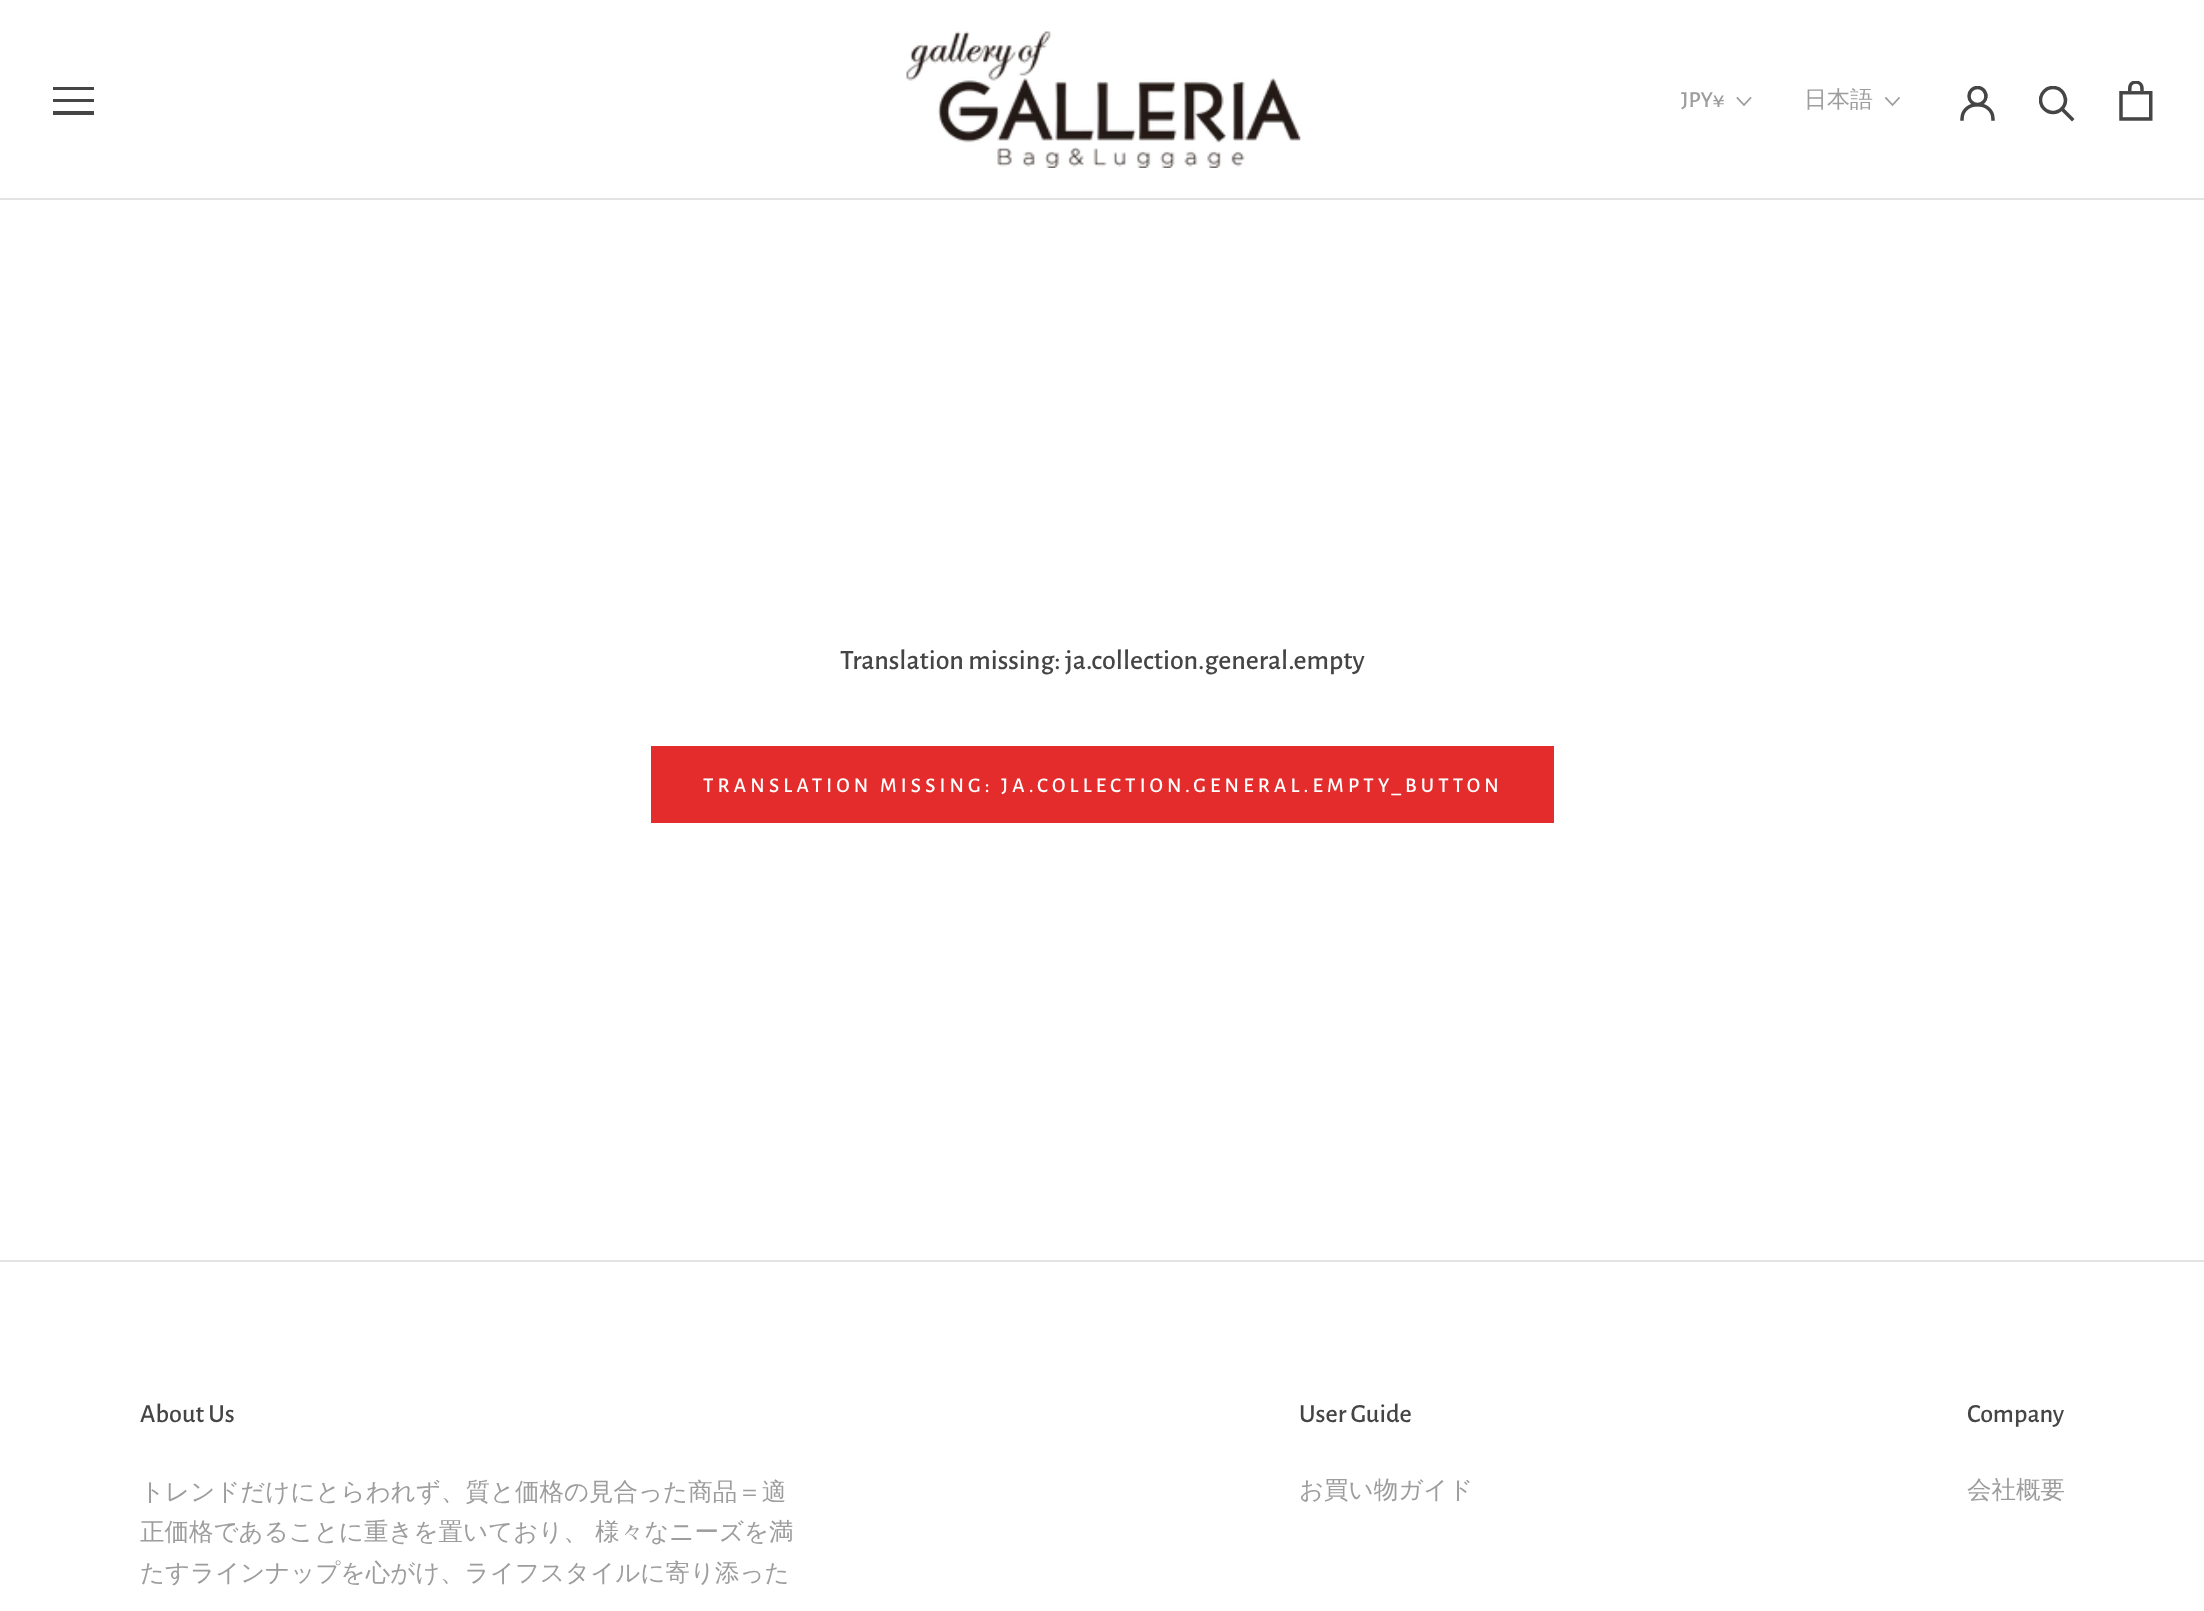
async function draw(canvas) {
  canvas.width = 2204
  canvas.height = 1611
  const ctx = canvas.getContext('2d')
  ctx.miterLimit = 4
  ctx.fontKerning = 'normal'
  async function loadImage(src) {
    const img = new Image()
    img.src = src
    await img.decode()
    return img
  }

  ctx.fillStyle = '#fff'
  ctx.fillRect(0, 0, 2204, 1611)
  ctx.fillStyle = '#e3e3e3'
  ctx.fillRect(0, 198, 2204, 2)
  ctx.save()
  ctx.beginPath()
  ctx.rect(53, 86, 42, 30)
  ctx.clip()
  ctx.fillStyle = '#454545'
  ctx.beginPath()
  ctx.moveTo(52, 115)
  ctx.lineTo(52, 111)
  ctx.lineTo(94, 111)
  ctx.lineTo(94, 115)
  ctx.closePath()
  ctx.moveTo(52, 99)
  ctx.lineTo(94, 99)
  ctx.lineTo(94, 102)
  ctx.lineTo(52, 102)
  ctx.closePath()
  ctx.moveTo(52, 87)
  ctx.lineTo(94, 87)
  ctx.lineTo(94, 90)
  ctx.lineTo(52, 90)
  ctx.closePath()
  ctx.fill()
  ctx.restore()
  ctx.drawImage(await loadImage('image0.png'), 906, 31, 395, 137)
  ctx.font = '500 23px Alegreya Sans'
  ctx.fillStyle = '#9d9d9d'
  ctx.fillText('JPY¥', 1681, 107)
  ctx.beginPath()
  ctx.moveTo(1750.5, 98)
  ctx.lineTo(1744, 105)
  ctx.lineTo(1737.5, 98)
  ctx.strokeStyle = '#9d9d9d'
  ctx.lineWidth = 1.8
  ctx.lineCap = 'square'
  ctx.stroke()
  ctx.font = '500 23px WenQuanYi Zen Hei'
  ctx.fillText('日本語', 1804, 107)
  ctx.beginPath()
  ctx.moveTo(1899, 98)
  ctx.lineTo(1892.5, 105)
  ctx.lineTo(1886, 98)
  ctx.stroke()
  ctx.beginPath()
  ctx.moveTo(1962, 119)
  ctx.bezierCurveTo(1962, 100, 1993, 100, 1993, 119)
  ctx.strokeStyle = '#454545'
  ctx.lineWidth = 3.5
  ctx.stroke()
  ctx.save()
  ctx.beginPath()
  ctx.rect(1960, 86, 35, 35)
  ctx.clip()
  ctx.beginPath()
  ctx.arc(1977.5, 96, 8.5, 0, 2 * Math.PI)
  ctx.stroke()
  ctx.restore()
  ctx.beginPath()
  ctx.moveTo(2072, 119)
  ctx.lineTo(2062, 109)
  ctx.stroke()
  ctx.save()
  ctx.beginPath()
  ctx.rect(2039, 86, 37, 37)
  ctx.clip()
  ctx.beginPath()
  ctx.arc(2053, 100, 12.5, 0, 2 * Math.PI)
  ctx.stroke()
  ctx.restore()
  ctx.drawImage(await loadImage('image1.png'), 2119, 81, 34, 40)
  ctx.font = '500 28px Alegreya Sans'
  ctx.fillStyle = '#454545'
  ctx.fillText('Translation missing: ja.collection.general.empty', 840, 669)
  ctx.strokeStyle = '#e32c2b'
  ctx.lineWidth = 2
  ctx.strokeRect(652, 747, 901, 75)
  ctx.fillStyle = '#e32c2b'
  ctx.fillRect(653, 748, 899, 73)
  ctx.letterSpacing = '4.2px'
  ctx.font = '500 21px Alegreya Sans'
  ctx.fillStyle = '#fff'
  ctx.fillText('TRANSLATION MISSING: JA.COLLECTION.GENERAL.EMPTY_BUTTON', 703, 792)
  ctx.fillStyle = '#e3e3e3'
  ctx.fillRect(0, 1260, 2204, 2)
  ctx.letterSpacing = '0px'
  ctx.font = '500 26.25px Alegreya Sans'
  ctx.fillStyle = '#454545'
  ctx.fillText('About Us', 140, 1422)
  ctx.font = '500 24.5px WenQuanYi Zen Hei'
  ctx.fillStyle = '#9d9d9d'
  ctx.fillText('トレンドだけにとらわれず、質と価格の見合った商品＝適', 140, 1500)
  ctx.fillText('正価格であることに重きを置いており、 様々なニーズを満', 140, 1540)
  ctx.fillText('たすラインナップを心がけ、ライフスタイルに寄り添った', 140, 1581)
  ctx.font = '500 26.25px Alegreya Sans'
  ctx.fillStyle = '#454545'
  ctx.fillText('User Guide', 1299, 1422)
  ctx.font = '500 24.5px WenQuanYi Zen Hei'
  ctx.fillStyle = '#9d9d9d'
  ctx.fillText('お買い物ガイド', 1299, 1498)
  ctx.font = '500 26.25px Alegreya Sans'
  ctx.fillStyle = '#454545'
  ctx.fillText('Company', 1967, 1422)
  ctx.font = '500 24.5px WenQuanYi Zen Hei'
  ctx.fillStyle = '#9d9d9d'
  ctx.fillText('会社概要', 1967, 1498)
}

draw(document.querySelector('canvas'))
